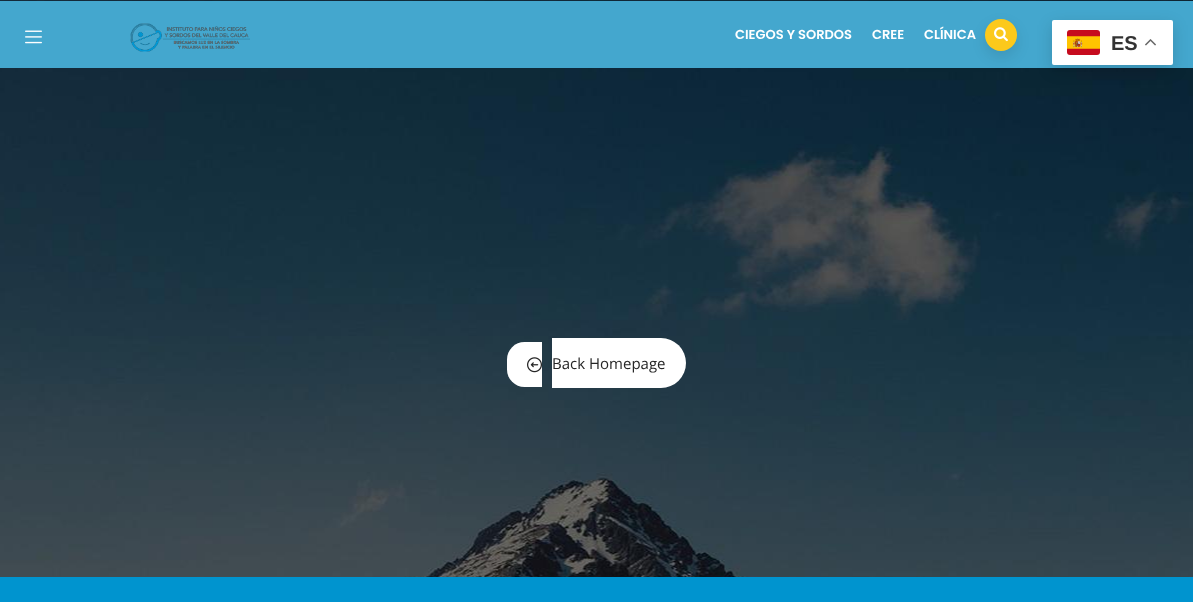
async function draw(canvas) {
  canvas.width = 1193
  canvas.height = 602
  const ctx = canvas.getContext('2d')
  ctx.miterLimit = 4
  ctx.fontKerning = 'normal'
  async function loadImage(src) {
    const img = new Image()
    img.src = src
    await img.decode()
    return img
  }

  ctx.fillStyle = '#0094cf'
  ctx.fillRect(0, 0, 1193, 602)
  ctx.drawImage(await loadImage('image3.png'), 0, 0, 1193, 577)
  ctx.fillStyle = '#44a7ce'
  ctx.fillRect(0, 1, 1193, 67)
  ctx.drawImage(await loadImage('image0.png'), 25, 30, 17, 14)
  ctx.drawImage(await loadImage('image1.png'), 130, 23, 120, 29)
  ctx.font = '600 13px Poppins'
  ctx.fillStyle = '#fff'
  ctx.fillText('CIEGOS Y SORDOS', 735, 39)
  ctx.fillText('CREE', 872, 39)
  ctx.fillText('CLÍNICA', 924, 39)
  ctx.fillStyle = '#0000001a'
  ctx.filter = 'blur(7px)'
  ctx.beginPath()
  ctx.roundRect(985, 25, 32, 32, 16)
  ctx.fill()
  ctx.filter = 'none'
  ctx.fillStyle = '#fcc91b'
  ctx.beginPath()
  ctx.arc(1001, 35, 16, 0, 2 * Math.PI)
  ctx.fill()
  ctx.drawImage(await loadImage('image2.png'), 994, 27, 14, 15)
  ctx.fillStyle = '#fff'
  ctx.beginPath()
  ctx.roundRect(507, 342, 35, 45, [17.5, 0, 0, 17.5])
  ctx.fill()
  ctx.drawImage(await loadImage('image4.png'), 527, 357, 15, 16)
  ctx.beginPath()
  ctx.roundRect(552, 338, 134, 50, [0, 25, 25, 0])
  ctx.fill()
  ctx.font = '15px Open Sans'
  ctx.fillStyle = '#262626'
  ctx.fillText('Back Homepage', 552, 369)
  ctx.fillStyle = '#00000026'
  ctx.filter = 'blur(7.5px)'
  ctx.beginPath()
  ctx.roundRect(1052, 25, 121, 45, 2)
  ctx.fill()
  ctx.filter = 'none'
  ctx.fillStyle = '#fff'
  ctx.beginPath()
  ctx.roundRect(1052, 20, 121, 45, 2)
  ctx.fill()
  ctx.drawImage(await loadImage('image5.png'), 1067, 30, 33, 25)
  ctx.font = 'bold 20px Liberation Sans'
  ctx.fillStyle = '#333'
  ctx.fillText('ES', 1111, 50)
  ctx.drawImage(await loadImage('image6.png'), 1145, 39, 11, 7)
}

draw(document.querySelector('canvas'))
